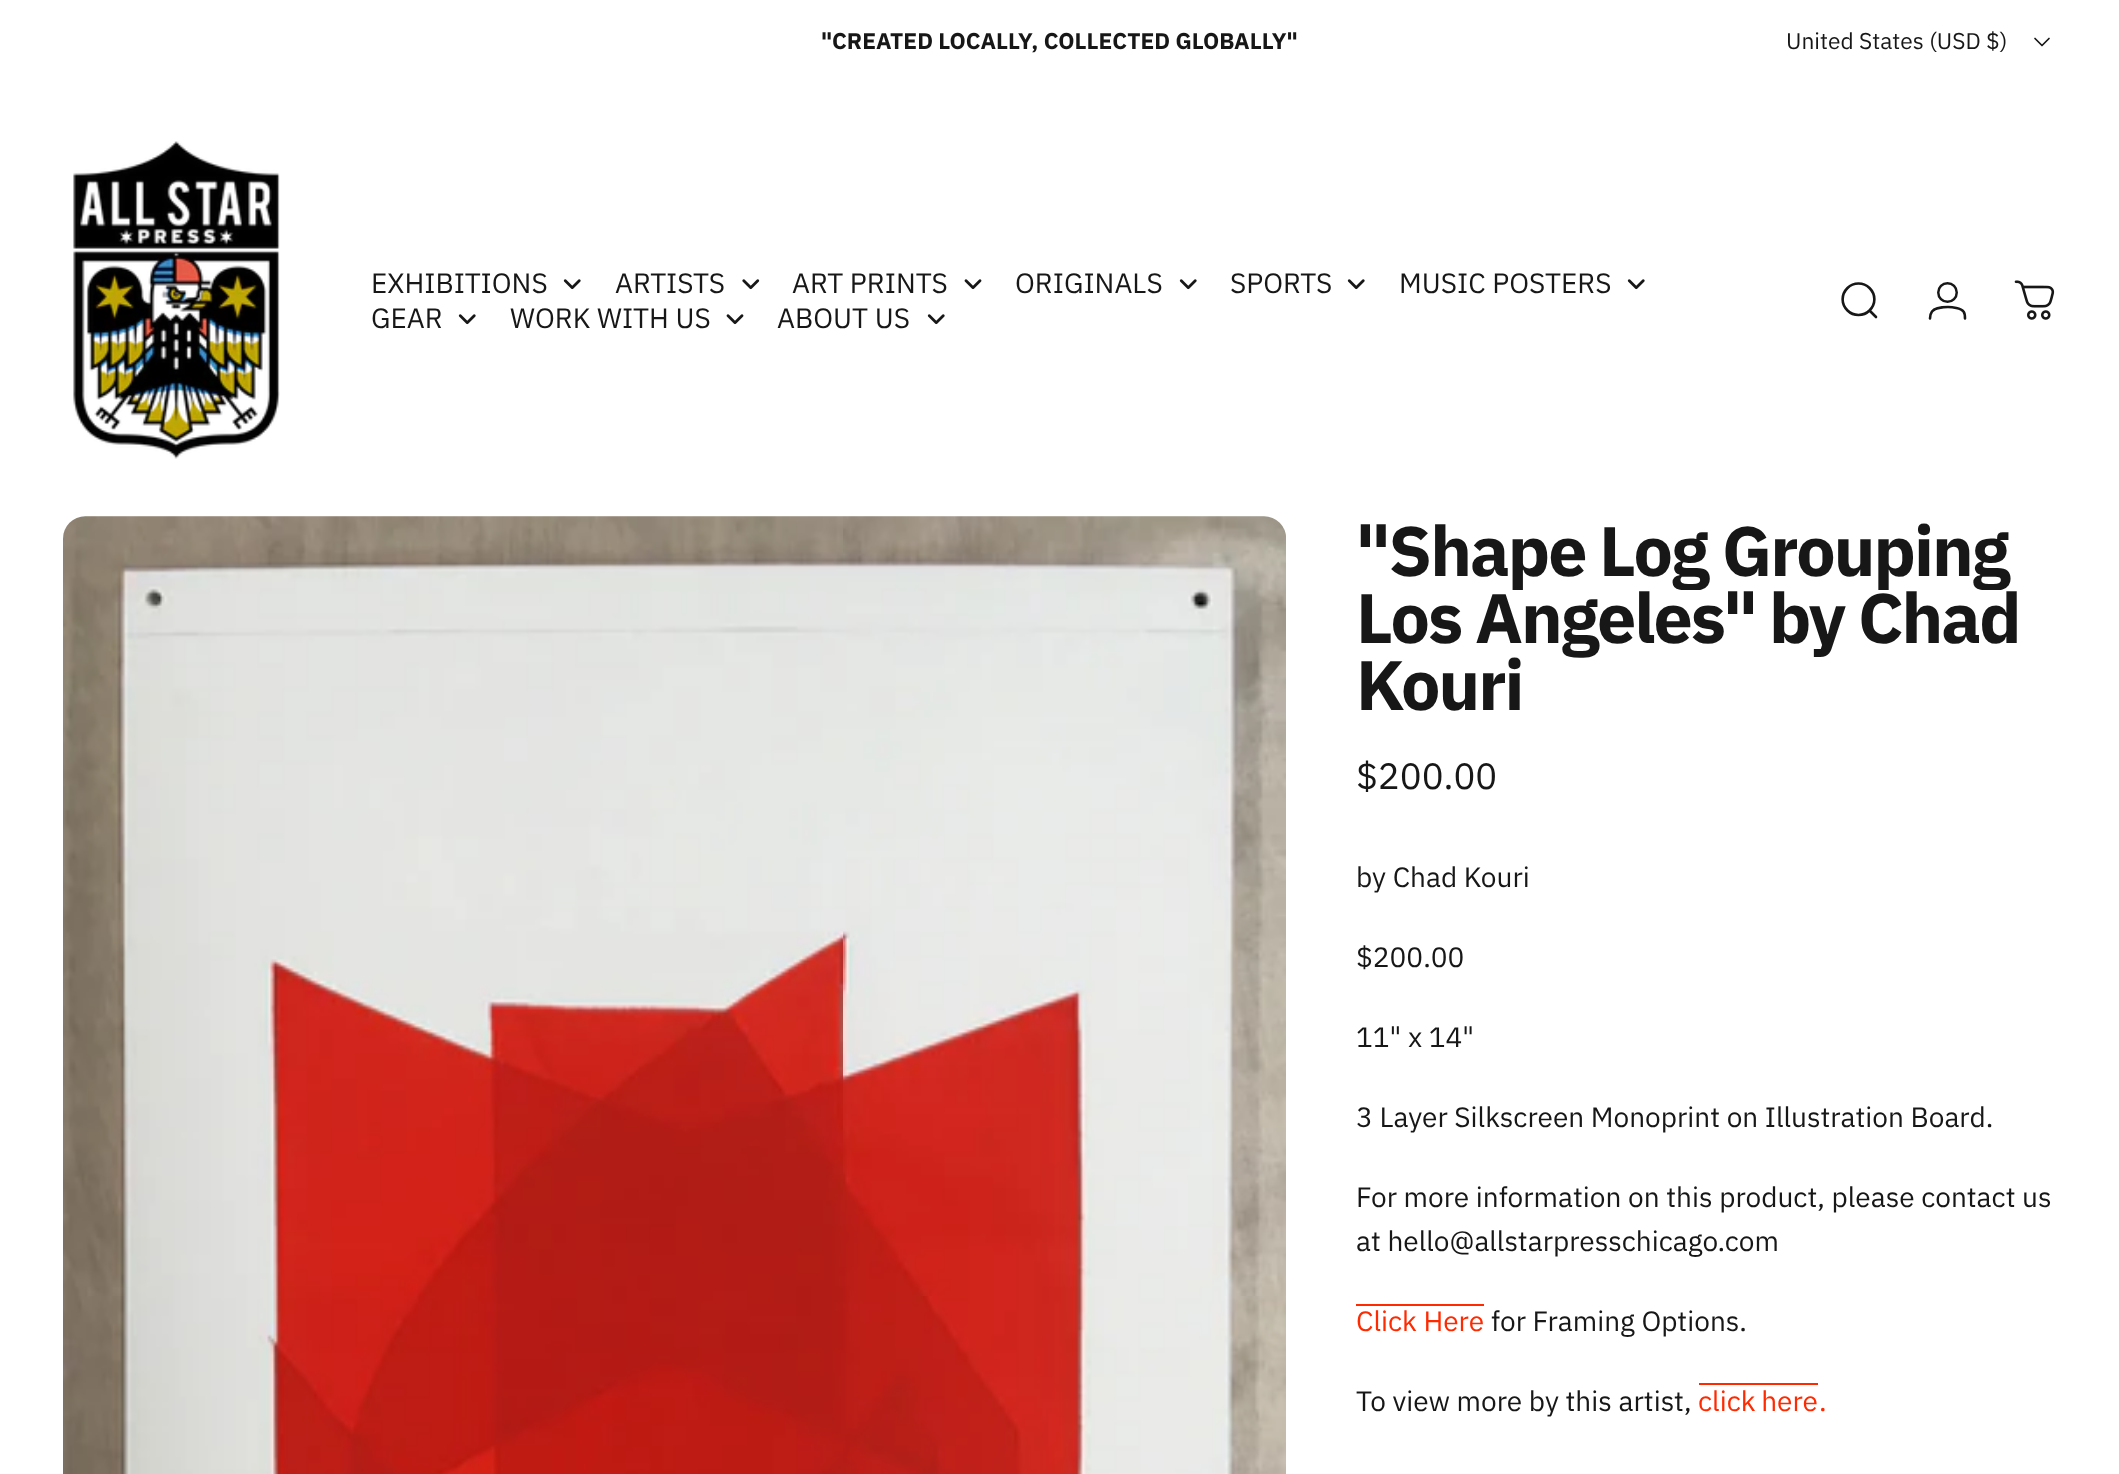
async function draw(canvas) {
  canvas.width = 2119
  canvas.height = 1474
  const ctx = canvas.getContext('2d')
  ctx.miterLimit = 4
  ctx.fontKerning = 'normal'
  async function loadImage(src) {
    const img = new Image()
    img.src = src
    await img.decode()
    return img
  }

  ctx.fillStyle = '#fff'
  ctx.fillRect(0, 0, 2119, 1474)
  ctx.font = 'bold 22.75px IBM Plex Sans'
  ctx.fillStyle = '#171717'
  ctx.fillText('"CREATED LOCALLY, COLLECTED GLOBALLY"', 821, 49)
  ctx.font = '22.75px IBM Plex Sans'
  ctx.fillText('United States (USD $)', 1786, 49)
  ctx.beginPath()
  ctx.moveTo(2035, 38.5)
  ctx.lineTo(2042, 45.5)
  ctx.lineTo(2049, 38.5)
  ctx.strokeStyle = '#171717'
  ctx.lineWidth = 1.7
  ctx.lineCap = 'round'
  ctx.lineJoin = 'round'
  ctx.stroke()
  ctx.drawImage(await loadImage('image0.png'), 73, 141, 207, 318)
  ctx.font = '28px IBM Plex Sans'
  ctx.fillText('EXHIBITIONS', 371, 293)
  ctx.drawImage(await loadImage('image1.png'), 563, 279, 18, 11)
  ctx.fillText('ARTISTS', 615, 293)
  ctx.drawImage(await loadImage('image2.png'), 742, 279, 18, 11)
  ctx.fillText('ART PRINTS', 792, 293)
  ctx.drawImage(await loadImage('image3.png'), 964, 279, 18, 11)
  ctx.fillText('ORIGINALS', 1015, 293)
  ctx.drawImage(await loadImage('image1.png'), 1179, 279, 18, 11)
  ctx.fillText('SPORTS', 1230, 293)
  ctx.drawImage(await loadImage('image1.png'), 1347, 279, 18, 11)
  ctx.fillText('MUSIC POSTERS', 1399, 293)
  ctx.drawImage(await loadImage('image1.png'), 1627, 279, 18, 11)
  ctx.fillText('GEAR', 371, 328)
  ctx.drawImage(await loadImage('image1.png'), 458, 314, 18, 11)
  ctx.fillText('WORK WITH US', 510, 328)
  ctx.drawImage(await loadImage('image3.png'), 726, 314, 18, 11)
  ctx.fillText('ABOUT US', 777, 328)
  ctx.drawImage(await loadImage('image1.png'), 927, 314, 18, 11)
  ctx.beginPath()
  ctx.moveTo(1876, 317)
  ctx.lineTo(1869.5, 310.5)
  ctx.moveTo(1869.5, 310.5)
  ctx.bezierCurveTo(1876, 304, 1876, 294.5, 1869.5, 288)
  ctx.bezierCurveTo(1863.5, 282, 1853.5, 282, 1847.5, 288)
  ctx.bezierCurveTo(1841, 294.5, 1841, 304, 1847.5, 310.5)
  ctx.bezierCurveTo(1853.5, 316.5, 1863.5, 316.5, 1869.5, 310.5)
  ctx.closePath()
  ctx.lineWidth = 2.6
  ctx.lineJoin = 'miter'
  ctx.stroke()
  ctx.beginPath()
  ctx.arc(1947.5, 292.5, 9.25, 0, 2 * Math.PI)
  ctx.lineWidth = 2.5
  ctx.stroke()
  ctx.beginPath()
  ctx.moveTo(1948, 307)
  ctx.bezierCurveTo(1952, 307, 1961, 308, 1963.5, 311.5)
  ctx.bezierCurveTo(1965, 313.5, 1965, 316, 1965, 318.5)
  ctx.moveTo(1948, 307)
  ctx.bezierCurveTo(1943.5, 307, 1934.5, 308, 1932, 311.5)
  ctx.bezierCurveTo(1930.5, 313.5, 1930, 316, 1930, 318.5)
  ctx.lineWidth = 2.6
  ctx.stroke()
  ctx.drawImage(await loadImage('image4.png'), 2014, 280, 41, 40)
  ctx.fillStyle = '#fafafa'
  ctx.beginPath()
  ctx.roundRect(63, 516, 1223, 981, 23)
  ctx.fill()
  ctx.drawImage(await loadImage('image5.png'), 63, 516, 1223, 958)
  ctx.letterSpacing = '-2px'
  ctx.font = 'bold 70px IBM Plex Sans'
  ctx.fillStyle = '#171717'
  ctx.fillText('"Shape', 1356, 576)
  ctx.save()
  ctx.beginPath()
  ctx.rect(1596, 509, 116, 81)
  ctx.clip()
  ctx.fillText('Log', 1599, 576)
  ctx.restore()
  ctx.save()
  ctx.beginPath()
  ctx.rect(1719, 509, 292, 81)
  ctx.clip()
  ctx.fillText('Grouping', 1722, 576)
  ctx.restore()
  ctx.fillText('Los', 1356, 643)
  ctx.fillText('Angeles"', 1475, 643)
  ctx.fillText('by', 1769, 643)
  ctx.fillText('Chad', 1858, 643)
  ctx.fillText('Kouri', 1356, 710)
  ctx.letterSpacing = '0px'
  ctx.font = '36.5px IBM Plex Sans'
  ctx.fillText('$200.00', 1356, 789)
  ctx.font = '28px IBM Plex Sans'
  ctx.fillText('by Chad Kouri', 1356, 887)
  ctx.fillText('$200.00', 1356, 967)
  ctx.fillText('11" x 14"', 1356, 1047)
  ctx.fillText('3 Layer Silkscreen Monoprint on Illustration Board.', 1356, 1127)
  ctx.fillText('For more information on this product, please contact us', 1356, 1207)
  ctx.fillText('at hello@allstarpresschicago.com', 1356, 1251)
  ctx.fillStyle = '#ff2a00'
  ctx.fillText('Click Here', 1356, 1331)
  ctx.fillRect(1356, 1304, 128, 2)
  ctx.fillStyle = '#171717'
  ctx.fillText('for Framing Options.', 1491, 1331)
  ctx.fillText('To view more by this artist,', 1356, 1411)
  ctx.wordSpacing = '-1px'
  ctx.fillStyle = '#ff2a00'
  ctx.fillText('click here', 1698, 1411)
  ctx.fillRect(1699, 1383, 119, 2)
  ctx.wordSpacing = '0px'
  ctx.fillText('.', 1819, 1411)
}

draw(document.querySelector('canvas'))
